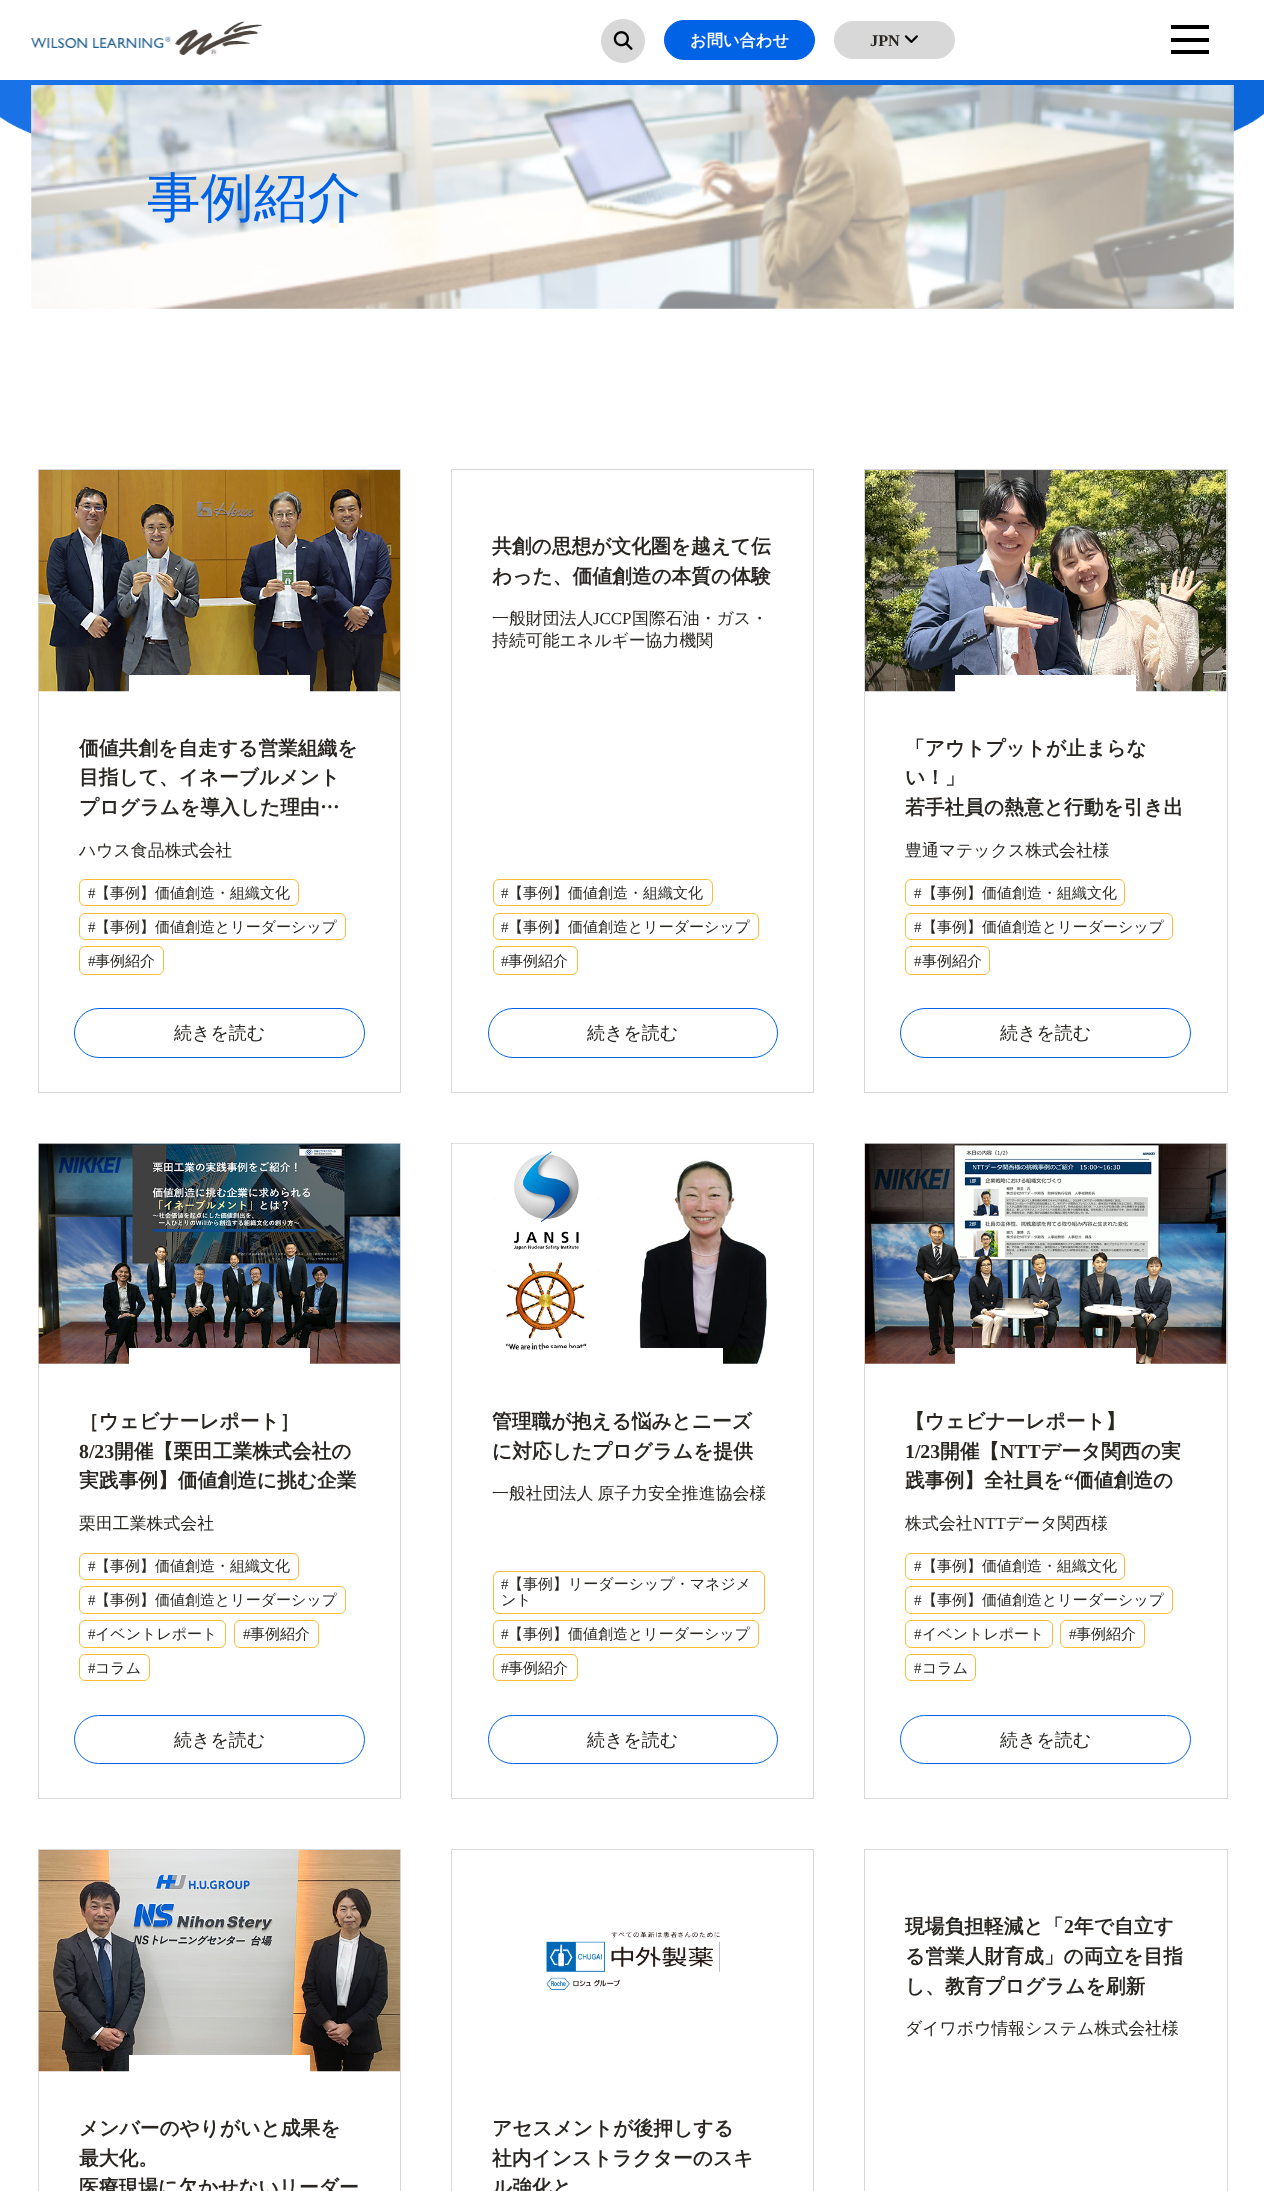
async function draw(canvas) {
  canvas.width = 1264
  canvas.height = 2191
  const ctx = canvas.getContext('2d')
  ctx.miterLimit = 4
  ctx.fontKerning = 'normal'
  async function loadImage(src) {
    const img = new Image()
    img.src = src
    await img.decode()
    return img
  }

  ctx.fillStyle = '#fff'
  ctx.fillRect(0, 0, 1264, 2191)
  ctx.drawImage(await loadImage('image0.png'), 31, 21, 232, 34)
  ctx.fillStyle = '#d8d8d8'
  ctx.beginPath()
  ctx.arc(623, 41, 21.5, 0, 2 * Math.PI)
  ctx.fill()
  ctx.strokeStyle = '#d8d8d8'
  ctx.stroke()
  ctx.drawImage(await loadImage('image1.png'), 613, 31, 20, 19)
  ctx.fillStyle = '#0063e6'
  ctx.beginPath()
  ctx.roundRect(664.5, 20.5, 150, 39, 19.5)
  ctx.fill()
  ctx.strokeStyle = '#0063e6'
  ctx.stroke()
  ctx.font = 'bold 16.25px WenQuanYi Zen Hei'
  ctx.fillStyle = '#fff'
  ctx.fillText('お問い合わせ', 690, 46)
  ctx.fillStyle = '#d8d8d8'
  ctx.beginPath()
  ctx.roundRect(834.5, 21.5, 120, 37, 18.5)
  ctx.fill()
  ctx.strokeStyle = '#d8d8d8'
  ctx.stroke()
  ctx.font = 'bold 16.25px Liberation Serif'
  ctx.fillStyle = '#2a2723'
  ctx.fillText('JPN', 870, 46)
  ctx.drawImage(await loadImage('image2.png'), 904, 35, 14, 8)
  ctx.fillStyle = '#000'
  ctx.fillRect(1171, 38, 38, 4)
  ctx.fillRect(1171, 25, 38, 4)
  ctx.fillRect(1171, 50, 38, 4)
  ctx.fillStyle = '#0063e5'
  ctx.fillRect(0, 80, 1264, 55)
  ctx.drawImage(await loadImage('image3.png'), 0, 80, 1264, 55)
  ctx.drawImage(await loadImage('image4.png'), 0, 113, 1264, 87)
  ctx.drawImage(await loadImage('image5.png'), 31, 85, 1203, 224)
  ctx.fillStyle = '#ffffff80'
  ctx.fillRect(31, 85, 1203, 224)
  ctx.font = '500 53.5px WenQuanYi Zen Hei'
  ctx.fillStyle = '#0063e5'
  ctx.fillText('事例紹介', 147, 216)
  ctx.strokeRect(38.5, 469.5, 362, 623)
  ctx.drawImage(await loadImage('image6.png'), 38, 470, 362, 222)
  ctx.fillStyle = '#fff'
  ctx.fillRect(129, 675, 181, 17)
  ctx.font = 'bold 19.75px WenQuanYi Zen Hei'
  ctx.fillStyle = '#2a2723'
  ctx.fillText('価値共創を自走する営業組織を', 79, 755)
  ctx.fillText('目指して、イネーブルメント', 79, 784)
  ctx.fillText('プログラムを導入した理由…', 79, 814)
  ctx.font = '500 16.9px WenQuanYi Zen Hei'
  ctx.fillText('ハウス食品株式会社', 79, 856)
  ctx.beginPath()
  ctx.roundRect(79.5, 879.5, 219, 26, 5.5)
  ctx.strokeStyle = '#f9bd38'
  ctx.stroke()
  ctx.font = '15px Liberation Serif'
  ctx.fillText('#', 88, 898)
  ctx.font = '500 15px WenQuanYi Zen Hei'
  ctx.fillText('【事例】価値創造・組織文化', 95, 898)
  ctx.beginPath()
  ctx.roundRect(79.5, 913.5, 266, 26, 5.5)
  ctx.stroke()
  ctx.font = '15px Liberation Serif'
  ctx.fillText('#', 88, 932)
  ctx.font = '500 15px WenQuanYi Zen Hei'
  ctx.fillText('【事例】価値創造とリーダーシップ', 95, 932)
  ctx.beginPath()
  ctx.roundRect(79.5, 946.5, 84, 28, 5.5)
  ctx.stroke()
  ctx.font = '15px Liberation Serif'
  ctx.fillText('#', 88, 966)
  ctx.font = '500 15px WenQuanYi Zen Hei'
  ctx.fillText('事例紹介', 95, 966)
  ctx.beginPath()
  ctx.roundRect(74.5, 1008.5, 290, 49, 24.5)
  ctx.strokeStyle = '#0063e5'
  ctx.stroke()
  ctx.font = '500 18px WenQuanYi Zen Hei'
  ctx.fillText('続きを読む', 174, 1039)
  ctx.strokeStyle = '#d8d8d8'
  ctx.strokeRect(451.5, 469.5, 362, 623)
  ctx.font = 'bold 19.75px WenQuanYi Zen Hei'
  ctx.fillText('共創の思想が文化圏を越えて伝', 492, 553)
  ctx.fillText('わった、価値創造の本質の体験', 492, 583)
  ctx.font = '500 16.9px WenQuanYi Zen Hei'
  ctx.fillText('一般財団法人', 492, 624)
  ctx.font = '16.9px Liberation Serif'
  ctx.fillText('JCCP', 593, 624)
  ctx.font = '500 16.9px WenQuanYi Zen Hei'
  ctx.fillText('国際石油・ガス・', 632, 624)
  ctx.fillText('持続可能エネルギー協力機関', 492, 646)
  ctx.beginPath()
  ctx.roundRect(493.5, 879.5, 219, 26, 5.5)
  ctx.strokeStyle = '#f9bd38'
  ctx.stroke()
  ctx.font = '15px Liberation Serif'
  ctx.fillText('#', 501, 898)
  ctx.font = '500 15px WenQuanYi Zen Hei'
  ctx.fillText('【事例】価値創造・組織文化', 508, 898)
  ctx.beginPath()
  ctx.roundRect(493.5, 913.5, 265, 26, 5.5)
  ctx.stroke()
  ctx.font = '15px Liberation Serif'
  ctx.fillText('#', 501, 932)
  ctx.font = '500 15px WenQuanYi Zen Hei'
  ctx.fillText('【事例】価値創造とリーダーシップ', 508, 932)
  ctx.beginPath()
  ctx.roundRect(493.5, 946.5, 84, 28, 5.5)
  ctx.stroke()
  ctx.font = '15px Liberation Serif'
  ctx.fillText('#', 501, 966)
  ctx.font = '500 15px WenQuanYi Zen Hei'
  ctx.fillText('事例紹介', 508, 966)
  ctx.beginPath()
  ctx.roundRect(488.5, 1008.5, 289, 49, 24.5)
  ctx.strokeStyle = '#0063e5'
  ctx.stroke()
  ctx.font = '500 18px WenQuanYi Zen Hei'
  ctx.fillText('続きを読む', 587, 1039)
  ctx.strokeStyle = '#d8d8d8'
  ctx.strokeRect(864.5, 469.5, 363, 623)
  ctx.drawImage(await loadImage('image7.png'), 865, 470, 362, 222)
  ctx.fillStyle = '#fff'
  ctx.fillRect(955, 675, 181, 17)
  ctx.font = 'bold 19.75px WenQuanYi Zen Hei'
  ctx.fillStyle = '#2a2723'
  ctx.fillText('「アウトプットが止まらな', 905, 755)
  ctx.fillText('い！」', 905, 784)
  ctx.fillText('若手社員の熱意と行動を引き出', 905, 814)
  ctx.font = '500 16.9px WenQuanYi Zen Hei'
  ctx.fillText('豊通マテックス株式会社様', 905, 856)
  ctx.beginPath()
  ctx.roundRect(905.5, 879.5, 219, 26, 5.5)
  ctx.strokeStyle = '#f9bd38'
  ctx.stroke()
  ctx.font = '15px Liberation Serif'
  ctx.fillText('#', 914, 898)
  ctx.font = '500 15px WenQuanYi Zen Hei'
  ctx.fillText('【事例】価値創造・組織文化', 922, 898)
  ctx.beginPath()
  ctx.roundRect(905.5, 913.5, 267, 26, 5.5)
  ctx.stroke()
  ctx.font = '15px Liberation Serif'
  ctx.fillText('#', 914, 932)
  ctx.font = '500 15px WenQuanYi Zen Hei'
  ctx.fillText('【事例】価値創造とリーダーシップ', 922, 932)
  ctx.beginPath()
  ctx.roundRect(905.5, 946.5, 84, 28, 5.5)
  ctx.stroke()
  ctx.font = '15px Liberation Serif'
  ctx.fillText('#', 914, 966)
  ctx.font = '500 15px WenQuanYi Zen Hei'
  ctx.fillText('事例紹介', 922, 966)
  ctx.beginPath()
  ctx.roundRect(900.5, 1008.5, 290, 49, 24.5)
  ctx.strokeStyle = '#0063e5'
  ctx.stroke()
  ctx.font = '500 18px WenQuanYi Zen Hei'
  ctx.fillText('続きを読む', 1000, 1039)
  ctx.strokeStyle = '#d8d8d8'
  ctx.strokeRect(38.5, 1143.5, 362, 655)
  ctx.drawImage(await loadImage('image8.png'), 38, 1143, 362, 221)
  ctx.fillStyle = '#fff'
  ctx.fillRect(129, 1348, 181, 16)
  ctx.font = 'bold 19.75px WenQuanYi Zen Hei'
  ctx.fillStyle = '#2a2723'
  ctx.fillText('［ウェビナーレポート］', 79, 1428)
  ctx.font = 'bold 19.75px Liberation Serif'
  ctx.fillText('8/23', 79, 1458)
  ctx.font = 'bold 19.75px WenQuanYi Zen Hei'
  ctx.fillText('開催【栗田工業株式会社の', 114, 1458)
  ctx.fillText('実践事例】価値創造に挑む企業', 79, 1487)
  ctx.font = '500 16.9px WenQuanYi Zen Hei'
  ctx.fillText('栗田工業株式会社', 79, 1529)
  ctx.beginPath()
  ctx.roundRect(79.5, 1553.5, 219, 26, 5.5)
  ctx.strokeStyle = '#f9bd38'
  ctx.stroke()
  ctx.font = '15px Liberation Serif'
  ctx.fillText('#', 88, 1571)
  ctx.font = '500 15px WenQuanYi Zen Hei'
  ctx.fillText('【事例】価値創造・組織文化', 95, 1571)
  ctx.beginPath()
  ctx.roundRect(79.5, 1586.5, 266, 27, 5.5)
  ctx.stroke()
  ctx.font = '15px Liberation Serif'
  ctx.fillText('#', 88, 1605)
  ctx.font = '500 15px WenQuanYi Zen Hei'
  ctx.fillText('【事例】価値創造とリーダーシップ', 95, 1605)
  ctx.beginPath()
  ctx.roundRect(79.5, 1620.5, 146, 27, 5.5)
  ctx.stroke()
  ctx.font = '15px Liberation Serif'
  ctx.fillText('#', 88, 1639)
  ctx.font = '500 15px WenQuanYi Zen Hei'
  ctx.fillText('イベントレポート', 95, 1639)
  ctx.beginPath()
  ctx.roundRect(234.5, 1620.5, 84, 27, 5.5)
  ctx.stroke()
  ctx.font = '15px Liberation Serif'
  ctx.fillText('#', 243, 1639)
  ctx.font = '500 15px WenQuanYi Zen Hei'
  ctx.fillText('事例紹介', 250, 1639)
  ctx.beginPath()
  ctx.roundRect(79.5, 1654.5, 70, 26, 5.5)
  ctx.stroke()
  ctx.font = '15px Liberation Serif'
  ctx.fillText('#', 88, 1673)
  ctx.font = '500 15px WenQuanYi Zen Hei'
  ctx.fillText('コラム', 95, 1673)
  ctx.beginPath()
  ctx.roundRect(74.5, 1715.5, 290, 48, 24)
  ctx.strokeStyle = '#0063e5'
  ctx.stroke()
  ctx.font = '500 18px WenQuanYi Zen Hei'
  ctx.fillText('続きを読む', 174, 1746)
  ctx.strokeStyle = '#d8d8d8'
  ctx.strokeRect(451.5, 1143.5, 362, 655)
  ctx.drawImage(await loadImage('image9.png'), 452, 1143, 361, 221)
  ctx.fillStyle = '#fff'
  ctx.fillRect(543, 1348, 180, 16)
  ctx.font = 'bold 19.75px WenQuanYi Zen Hei'
  ctx.fillStyle = '#2a2723'
  ctx.fillText('管理職が抱える悩みとニーズ', 492, 1428)
  ctx.fillText('に対応したプログラムを提供', 492, 1458)
  ctx.wordSpacing = '-1px'
  ctx.font = '500 16.9px WenQuanYi Zen Hei'
  ctx.fillText('一般社団法人 原子力安全推進協会様', 492, 1499)
  ctx.beginPath()
  ctx.roundRect(493.5, 1571.5, 271, 42, 5.5)
  ctx.strokeStyle = '#f9bd38'
  ctx.stroke()
  ctx.wordSpacing = '0px'
  ctx.font = '15px Liberation Serif'
  ctx.fillText('#', 501, 1589)
  ctx.font = '500 15px WenQuanYi Zen Hei'
  ctx.fillText('【事例】リーダーシップ・マネジメ', 508, 1589)
  ctx.fillText('ント', 501, 1605)
  ctx.beginPath()
  ctx.roundRect(493.5, 1620.5, 265, 27, 5.5)
  ctx.stroke()
  ctx.font = '15px Liberation Serif'
  ctx.fillText('#', 501, 1639)
  ctx.font = '500 15px WenQuanYi Zen Hei'
  ctx.fillText('【事例】価値創造とリーダーシップ', 508, 1639)
  ctx.beginPath()
  ctx.roundRect(493.5, 1654.5, 84, 26, 5.5)
  ctx.stroke()
  ctx.font = '15px Liberation Serif'
  ctx.fillText('#', 501, 1673)
  ctx.font = '500 15px WenQuanYi Zen Hei'
  ctx.fillText('事例紹介', 508, 1673)
  ctx.beginPath()
  ctx.roundRect(488.5, 1715.5, 289, 48, 24)
  ctx.strokeStyle = '#0063e5'
  ctx.stroke()
  ctx.font = '500 18px WenQuanYi Zen Hei'
  ctx.fillText('続きを読む', 587, 1746)
  ctx.strokeStyle = '#d8d8d8'
  ctx.strokeRect(864.5, 1143.5, 363, 655)
  ctx.drawImage(await loadImage('image10.png'), 865, 1143, 362, 221)
  ctx.fillStyle = '#fff'
  ctx.fillRect(955, 1348, 181, 16)
  ctx.font = 'bold 19.75px WenQuanYi Zen Hei'
  ctx.fillStyle = '#2a2723'
  ctx.fillText('【ウェビナーレポート】', 905, 1428)
  ctx.font = 'bold 19.75px Liberation Serif'
  ctx.fillText('1/23', 905, 1458)
  ctx.font = 'bold 19.75px WenQuanYi Zen Hei'
  ctx.fillText('開催【', 940, 1458)
  ctx.font = 'bold 19.75px Liberation Serif'
  ctx.fillText('NTT', 1000, 1458)
  ctx.font = 'bold 19.75px WenQuanYi Zen Hei'
  ctx.fillText('データ関西の実', 1041, 1458)
  ctx.fillText('践事例】全社員を', 905, 1487)
  ctx.font = 'bold 19.75px Liberation Serif'
  ctx.fillText('“', 1064, 1487)
  ctx.font = 'bold 19.75px WenQuanYi Zen Hei'
  ctx.fillText('価値創造の', 1074, 1487)
  ctx.font = '500 16.9px WenQuanYi Zen Hei'
  ctx.fillText('株式会社', 905, 1529)
  ctx.font = '16.9px Liberation Serif'
  ctx.fillText('NTT', 973, 1529)
  ctx.font = '500 16.9px WenQuanYi Zen Hei'
  ctx.fillText('データ関西様', 1006, 1529)
  ctx.beginPath()
  ctx.roundRect(905.5, 1553.5, 219, 26, 5.5)
  ctx.strokeStyle = '#f9bd38'
  ctx.stroke()
  ctx.font = '15px Liberation Serif'
  ctx.fillText('#', 914, 1571)
  ctx.font = '500 15px WenQuanYi Zen Hei'
  ctx.fillText('【事例】価値創造・組織文化', 922, 1571)
  ctx.beginPath()
  ctx.roundRect(905.5, 1586.5, 267, 27, 5.5)
  ctx.stroke()
  ctx.font = '15px Liberation Serif'
  ctx.fillText('#', 914, 1605)
  ctx.font = '500 15px WenQuanYi Zen Hei'
  ctx.fillText('【事例】価値創造とリーダーシップ', 922, 1605)
  ctx.beginPath()
  ctx.roundRect(905.5, 1620.5, 147, 27, 5.5)
  ctx.stroke()
  ctx.font = '15px Liberation Serif'
  ctx.fillText('#', 914, 1639)
  ctx.font = '500 15px WenQuanYi Zen Hei'
  ctx.fillText('イベントレポート', 922, 1639)
  ctx.beginPath()
  ctx.roundRect(1060.5, 1620.5, 84, 27, 5.5)
  ctx.stroke()
  ctx.font = '15px Liberation Serif'
  ctx.fillText('#', 1069, 1639)
  ctx.font = '500 15px WenQuanYi Zen Hei'
  ctx.fillText('事例紹介', 1076, 1639)
  ctx.beginPath()
  ctx.roundRect(905.5, 1654.5, 70, 26, 5.5)
  ctx.stroke()
  ctx.font = '15px Liberation Serif'
  ctx.fillText('#', 914, 1673)
  ctx.font = '500 15px WenQuanYi Zen Hei'
  ctx.fillText('コラム', 922, 1673)
  ctx.beginPath()
  ctx.roundRect(900.5, 1715.5, 290, 48, 24)
  ctx.strokeStyle = '#0063e5'
  ctx.stroke()
  ctx.font = '500 18px WenQuanYi Zen Hei'
  ctx.fillText('続きを読む', 1000, 1746)
  ctx.strokeStyle = '#d8d8d8'
  ctx.strokeRect(864.5, 1849.5, 363, 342)
  ctx.font = 'bold 19.75px WenQuanYi Zen Hei'
  ctx.fillText('現場負担軽減と「', 905, 1933)
  ctx.font = 'bold 19.75px Liberation Serif'
  ctx.fillText('2', 1064, 1933)
  ctx.font = 'bold 19.75px WenQuanYi Zen Hei'
  ctx.fillText('年で自立す', 1074, 1933)
  ctx.fillText('る営業人財育成」の両立を目指', 905, 1963)
  ctx.fillText('し、教育プログラムを刷新', 905, 1993)
  ctx.font = '500 16.9px WenQuanYi Zen Hei'
  ctx.fillText('ダイワボウ情報システム株式会社様', 905, 2034)
  ctx.strokeRect(38.5, 1849.5, 362, 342)
  ctx.drawImage(await loadImage('image11.png'), 38, 1850, 362, 222)
  ctx.fillStyle = '#fff'
  ctx.fillRect(129, 2055, 181, 17)
  ctx.font = 'bold 19.75px WenQuanYi Zen Hei'
  ctx.fillStyle = '#2a2723'
  ctx.fillText('メンバーのやりがいと成果を', 79, 2135)
  ctx.fillText('最大化。', 79, 2165)
  ctx.fillText('医療現場に欠かせないリーダー', 79, 2194)
  ctx.strokeRect(451.5, 1849.5, 362, 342)
  ctx.drawImage(await loadImage('image12.png'), 546, 1932, 174, 58)
  ctx.fillText('アセスメントが後押しする', 492, 2135)
  ctx.fillText('社内インストラクターのスキ', 492, 2165)
  ctx.fillText('ル強化と', 492, 2194)
}

draw(document.querySelector('canvas'))
